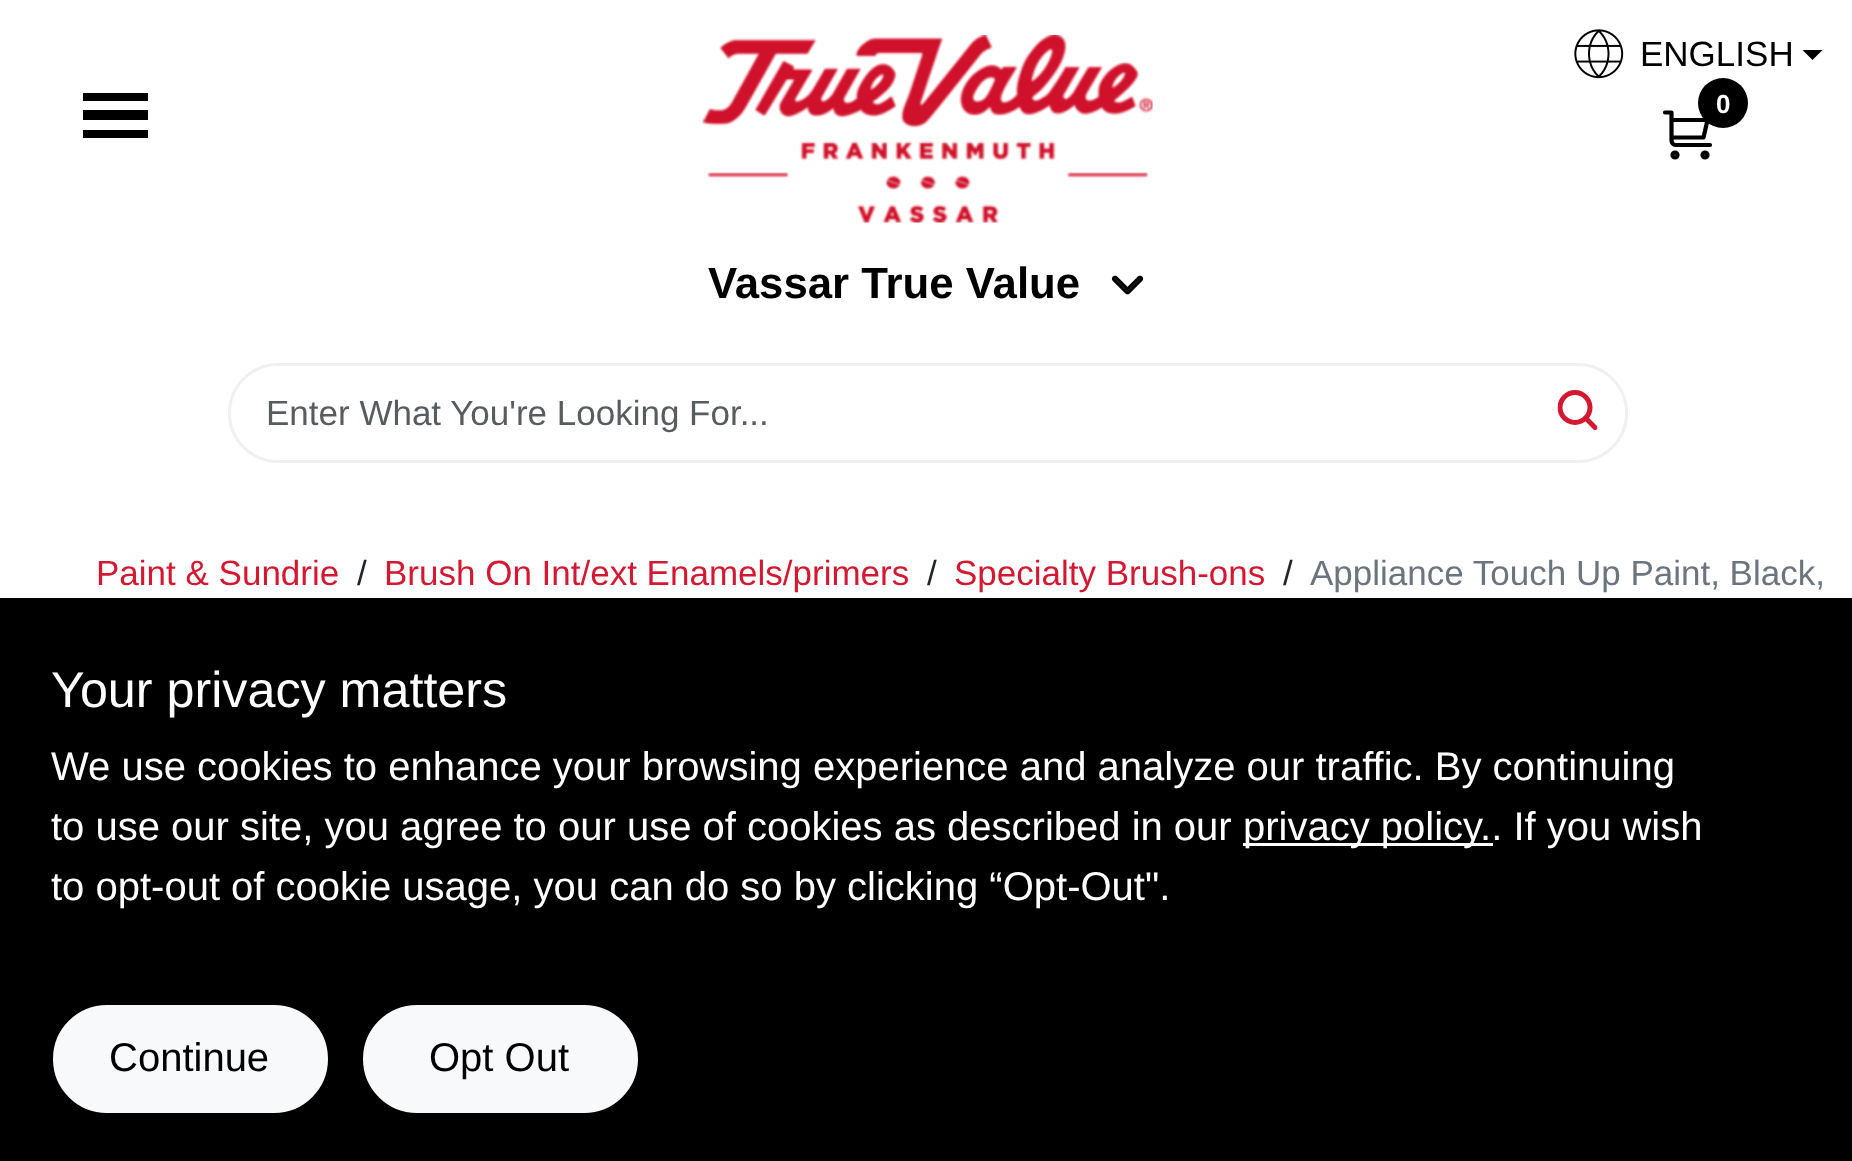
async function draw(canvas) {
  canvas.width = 1852
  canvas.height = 1161
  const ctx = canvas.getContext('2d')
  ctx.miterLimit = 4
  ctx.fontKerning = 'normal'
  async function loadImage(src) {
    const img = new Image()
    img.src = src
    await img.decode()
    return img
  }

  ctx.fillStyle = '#fff'
  ctx.fillRect(0, 0, 1852, 1161)
  ctx.fillStyle = '#000'
  ctx.fillRect(83, 93, 65, 8)
  ctx.fillRect(83, 110, 65, 10)
  ctx.fillRect(83, 130, 65, 8)
  ctx.drawImage(await loadImage('image0.png'), 1574, 29, 50, 50)
  ctx.font = '35px Liberation Sans'
  ctx.fillText('ENGLISH', 1640, 66)
  ctx.beginPath()
  ctx.moveTo(1802.5, 50)
  ctx.lineTo(1822.5, 50)
  ctx.lineTo(1812.5, 60)
  ctx.closePath()
  ctx.fill()
  ctx.beginPath()
  ctx.moveTo(1665, 112.5)
  ctx.lineTo(1671.5, 112.5)
  ctx.lineTo(1671.5, 140.5)
  ctx.bezierCurveTo(1671.5, 143, 1673.5, 145, 1675.5, 145)
  ctx.lineTo(1710, 145)
  ctx.moveTo(1672.5, 120)
  ctx.lineTo(1707.5, 120)
  ctx.lineTo(1703.5, 137.5)
  ctx.lineTo(1672.5, 137.5)
  ctx.strokeStyle = '#000'
  ctx.lineWidth = 4.2
  ctx.lineCap = 'round'
  ctx.lineJoin = 'round'
  ctx.stroke()
  ctx.beginPath()
  ctx.arc(1723, 103, 25, 0, 2 * Math.PI)
  ctx.fill()
  ctx.letterSpacing = '-2px'
  ctx.font = 'bold 26px Liberation Sans'
  ctx.fillStyle = '#fff'
  ctx.fillText('0', 1716, 113)
  ctx.beginPath()
  ctx.arc(1675, 155, 2.5, 0, 2 * Math.PI)
  ctx.stroke()
  ctx.beginPath()
  ctx.arc(1705, 155, 2.5, 0, 2 * Math.PI)
  ctx.stroke()
  ctx.drawImage(await loadImage('image1.png'), 702, 35, 451, 188)
  ctx.letterSpacing = '0px'
  ctx.font = 'bold 43.75px Liberation Sans'
  ctx.fillStyle = '#000'
  ctx.fillText('Vassar True Value', 708, 298)
  ctx.drawImage(await loadImage('image2.png'), 1111, 275, 33, 20)
  ctx.beginPath()
  ctx.roundRect(229.5, 364.5, 1397, 97, 48.5)
  ctx.strokeStyle = '#f0f0f0'
  ctx.lineWidth = 3
  ctx.lineJoin = 'miter'
  ctx.stroke()
  ctx.font = '35px Liberation Sans'
  ctx.fillStyle = '#595c5f'
  ctx.fillText('Enter What You\'re Looking For...', 266, 425)
  ctx.drawImage(await loadImage('image3.png'), 1557, 390, 41, 40)
  ctx.fillStyle = '#d31931'
  ctx.fillText('Paint & Sundrie', 96, 585)
  ctx.fillStyle = '#212529'
  ctx.fillText('/', 357, 585)
  ctx.fillStyle = '#d31931'
  ctx.fillText('Brush On Int/ext Enamels/primers', 384, 585)
  ctx.fillStyle = '#212529'
  ctx.fillText('/', 927, 585)
  ctx.fillStyle = '#d31931'
  ctx.fillText('Specialty Brush-ons', 954, 585)
  ctx.fillStyle = '#212529'
  ctx.fillText('/', 1283, 585)
  ctx.fillStyle = '#6c757d'
  ctx.fillText('Appliance Touch Up Paint, Black,', 1310, 585)
  ctx.fillStyle = '#000'
  ctx.fillRect(0, 598, 1852, 563)
  ctx.font = '50.25px Liberation Sans'
  ctx.fillStyle = '#fff'
  ctx.fillText('Your privacy matters', 51, 707)
  ctx.font = '40px Liberation Sans'
  ctx.fillText('We use cookies to enhance your browsing experience and analyze our traffic. By continuing', 51, 780)
  ctx.fillText('to use our site, you agree to our use of cookies as described in our', 51, 840)
  ctx.fillRect(1243, 843, 250, 3)
  ctx.fillText('privacy policy.. If you wish', 1243, 840)
  ctx.fillText('to opt-out of cookie usage, you can do so by clicking “Opt-Out".', 51, 900)
  ctx.fillStyle = '#f8f9fa'
  ctx.beginPath()
  ctx.roundRect(54.5, 1006.5, 272, 105, 52.5)
  ctx.fill()
  ctx.strokeStyle = '#f8f9fa'
  ctx.stroke()
  ctx.fillStyle = '#000'
  ctx.fillText('Continue', 109, 1071)
  ctx.fillStyle = '#f8f9fa'
  ctx.beginPath()
  ctx.roundRect(364.5, 1006.5, 272, 105, 52.5)
  ctx.fill()
  ctx.stroke()
  ctx.fillStyle = '#000'
  ctx.fillText('Opt Out', 429, 1071)
}

draw(document.querySelector('canvas'))
